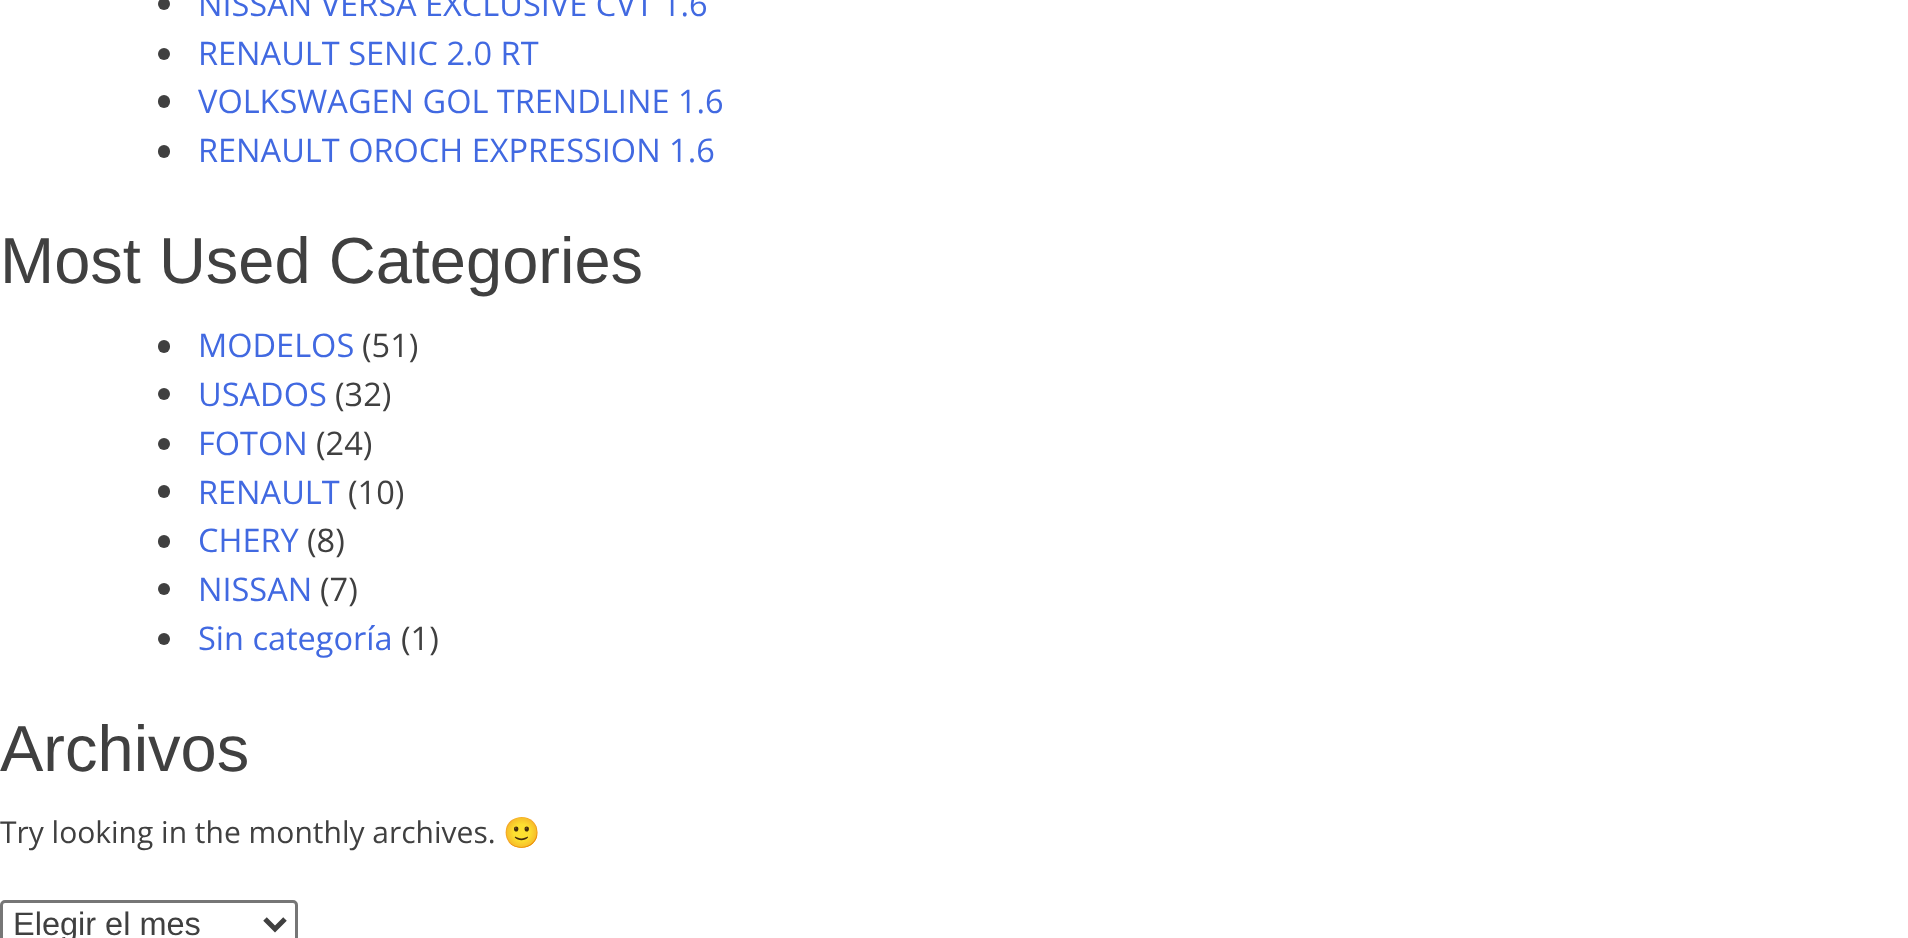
async function draw(canvas) {
  canvas.width = 1908
  canvas.height = 938
  const ctx = canvas.getContext('2d')
  ctx.miterLimit = 4
  ctx.fontKerning = 'normal'

  ctx.fillStyle = '#fff'
  ctx.fillRect(0, 0, 1908, 938)
  ctx.fillStyle = '#404040'
  ctx.beginPath()
  ctx.arc(164, 4, 6, 0, 2 * Math.PI)
  ctx.fill()
  ctx.font = '32.5px Open Sans'
  ctx.fillStyle = '#4169e1'
  ctx.fillText('NISSAN VERSA EXCLUSIVE CVT 1.6', 198, 16)
  ctx.fillStyle = '#404040'
  ctx.beginPath()
  ctx.arc(164, 54, 6, 0, 2 * Math.PI)
  ctx.fill()
  ctx.fillStyle = '#4169e1'
  ctx.fillText('RENAULT SENIC 2.0 RT', 198, 65)
  ctx.fillStyle = '#404040'
  ctx.beginPath()
  ctx.roundRect(158, 95, 12, 13, 6)
  ctx.fill()
  ctx.fillStyle = '#4169e1'
  ctx.fillText('VOLKSWAGEN GOL TRENDLINE 1.6', 198, 113)
  ctx.fillStyle = '#404040'
  ctx.beginPath()
  ctx.roundRect(158, 145, 12, 13, 6)
  ctx.fill()
  ctx.fillStyle = '#4169e1'
  ctx.fillText('RENAULT OROCH EXPRESSION 1.6', 198, 162)
  ctx.font = '65px Liberation Sans'
  ctx.fillStyle = '#404040'
  ctx.fillText('Most Used Categories', 0, 283)
  ctx.beginPath()
  ctx.roundRect(158, 340, 12, 13, 6)
  ctx.fill()
  ctx.font = '32.5px Open Sans'
  ctx.fillStyle = '#4169e1'
  ctx.fillText('MODELOS', 198, 357)
  ctx.fillStyle = '#404040'
  ctx.fillText('(51)', 362, 357)
  ctx.beginPath()
  ctx.arc(164, 394, 6, 0, 2 * Math.PI)
  ctx.fill()
  ctx.fillStyle = '#4169e1'
  ctx.fillText('USADOS', 198, 406)
  ctx.fillStyle = '#404040'
  ctx.fillText('(32)', 335, 406)
  ctx.beginPath()
  ctx.arc(164, 444, 6, 0, 2 * Math.PI)
  ctx.fill()
  ctx.fillStyle = '#4169e1'
  ctx.fillText('FOTON', 198, 455)
  ctx.fillStyle = '#404040'
  ctx.fillText('(24)', 316, 455)
  ctx.beginPath()
  ctx.roundRect(158, 485, 12, 13, 6)
  ctx.fill()
  ctx.fillStyle = '#4169e1'
  ctx.fillText('RENAULT', 198, 504)
  ctx.fillStyle = '#404040'
  ctx.fillText('(10)', 348, 504)
  ctx.beginPath()
  ctx.roundRect(158, 535, 12, 13, 6)
  ctx.fill()
  ctx.fillStyle = '#4169e1'
  ctx.fillText('CHERY', 198, 552)
  ctx.fillStyle = '#404040'
  ctx.fillText('(8)', 307, 552)
  ctx.beginPath()
  ctx.arc(164, 589, 6, 0, 2 * Math.PI)
  ctx.fill()
  ctx.fillStyle = '#4169e1'
  ctx.fillText('NISSAN', 198, 601)
  ctx.fillStyle = '#404040'
  ctx.fillText('(7)', 320, 601)
  ctx.beginPath()
  ctx.arc(164, 639, 6, 0, 2 * Math.PI)
  ctx.fill()
  ctx.fillStyle = '#4169e1'
  ctx.fillText('Sin categoría', 198, 650)
  ctx.fillStyle = '#404040'
  ctx.fillText('(1)', 401, 650)
  ctx.font = '65px Liberation Sans'
  ctx.fillText('Archivos', 0, 771)
  ctx.font = '30px Open Sans'
  ctx.fillText('Try looking in the monthly archives.', 0, 843)
  ctx.font = '30px Noto Color Emoji'
  ctx.fillText('🙂', 503, 843)
  ctx.beginPath()
  ctx.roundRect(1.5, 901.5, 295, 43, 3.5)
  ctx.strokeStyle = '#767676'
  ctx.lineWidth = 3
  ctx.stroke()
  ctx.beginPath()
  ctx.moveTo(265, 919)
  ctx.lineTo(275, 929)
  ctx.lineTo(285, 919)
  ctx.strokeStyle = '#404040'
  ctx.lineWidth = 5
  ctx.stroke()
  ctx.font = '32.5px Liberation Sans'
  ctx.fillText('Elegir el mes', 13, 935)
}

draw(document.querySelector('canvas'))
